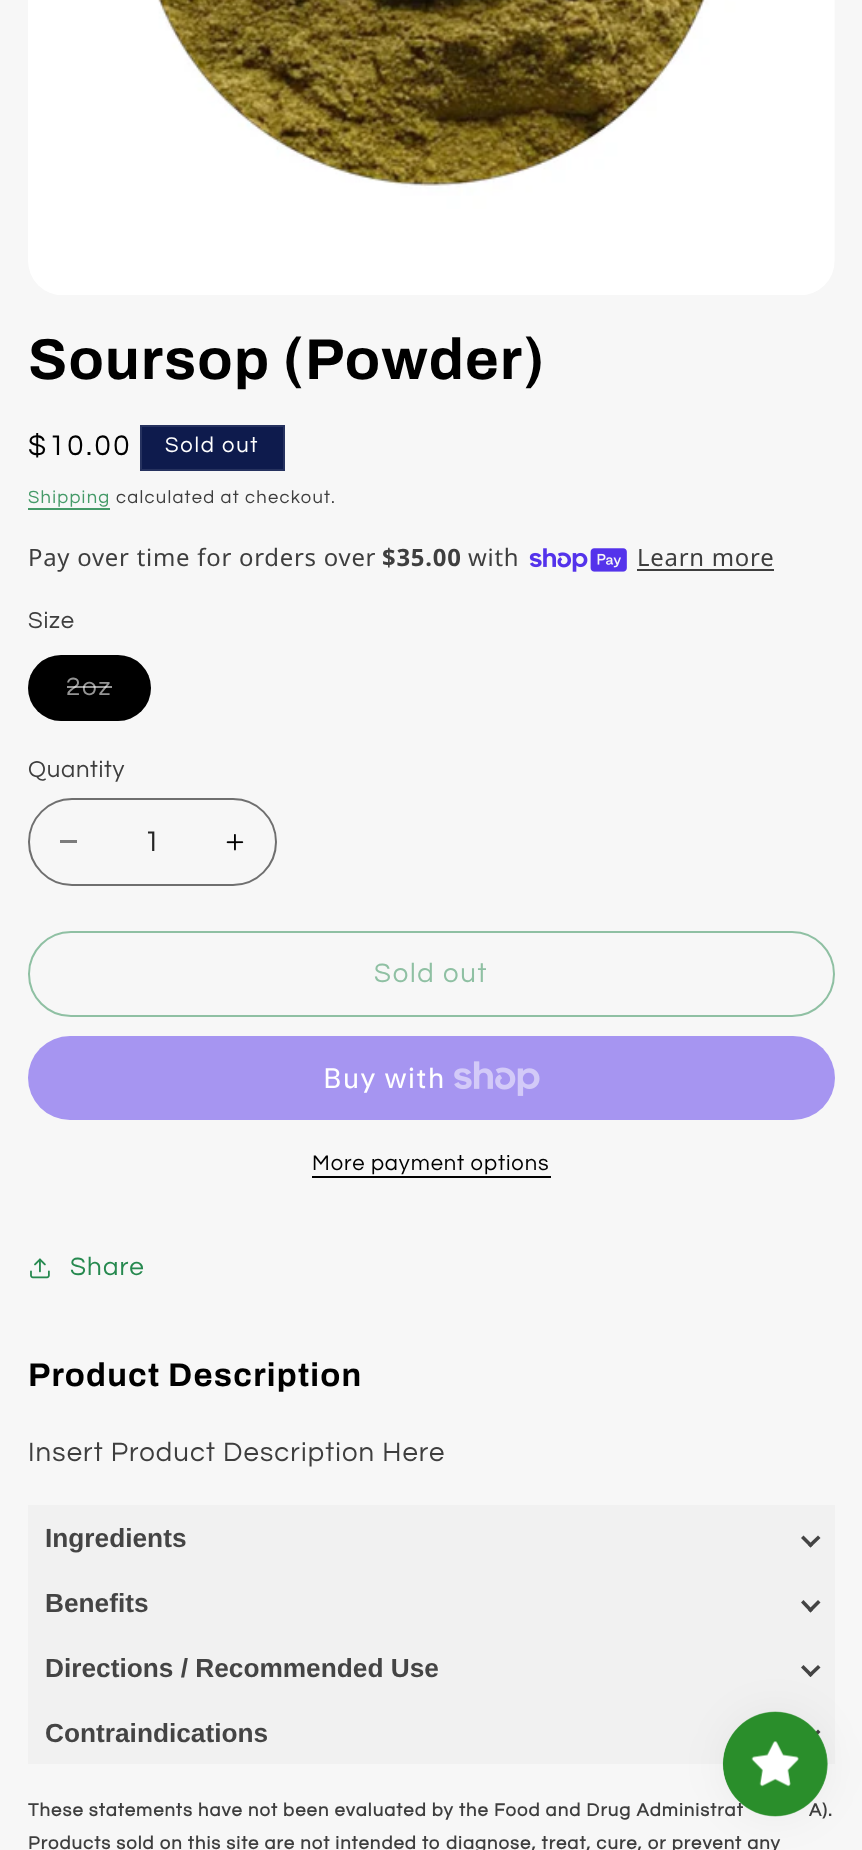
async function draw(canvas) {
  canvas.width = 862
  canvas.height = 1850
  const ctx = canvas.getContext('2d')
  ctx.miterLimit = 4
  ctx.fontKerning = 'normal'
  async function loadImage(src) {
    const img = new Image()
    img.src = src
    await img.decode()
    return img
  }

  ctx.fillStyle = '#f7f7f7'
  ctx.fillRect(0, 0, 862, 1850)
  ctx.drawImage(await loadImage('image0.png'), 28, 0, 807, 295)
  ctx.letterSpacing = '1.2px'
  ctx.font = 'bold 57.75px Archivo'
  ctx.fillStyle = '#000'
  ctx.fillText('Soursop (Powder)', 28, 379)
  ctx.letterSpacing = '2.5px'
  ctx.font = '29.5px Questrial'
  ctx.fillText('$10.00', 28, 455)
  ctx.fillStyle = '#0e1b4d'
  ctx.beginPath()
  ctx.rect(141, 426, 143, 44)
  ctx.fill()
  ctx.strokeStyle = '#26325f'
  ctx.lineWidth = 2
  ctx.stroke()
  ctx.letterSpacing = '1.75px'
  ctx.font = '22px Questrial'
  ctx.fillStyle = '#fff'
  ctx.fillText('Sold out', 165, 452)
  ctx.letterSpacing = '1.25px'
  ctx.font = '18.4px Questrial'
  ctx.fillStyle = '#459a68'
  ctx.fillText('Shipping', 28, 503)
  ctx.fillRect(28, 508, 82, 2)
  ctx.fillStyle = '#3e3e3e'
  ctx.fillText('calculated at checkout.', 116, 503)
  ctx.letterSpacing = '0.75px'
  ctx.font = '23.9px Noto Sans'
  ctx.fillText('Pay over time for orders over', 28, 566)
  ctx.font = 'bold 23.9px Noto Sans'
  ctx.fillText('$35.00', 382, 566)
  ctx.font = '23.9px Noto Sans'
  ctx.fillText('with', 468, 566)
  ctx.drawImage(await loadImage('image1.png'), 529, 548, 98, 24)
  ctx.fillText('Learn more', 637, 566)
  ctx.fillRect(637, 569, 137, 2)
  ctx.font = '23.9px Questrial'
  ctx.fillText('Size', 28, 628)
  ctx.fillStyle = '#000'
  ctx.beginPath()
  ctx.roundRect(28, 655, 123, 66, 33)
  ctx.fill()
  ctx.beginPath()
  ctx.roundRect(29, 656, 121, 64, 32)
  ctx.strokeStyle = '#0000001a'
  ctx.stroke()
  ctx.letterSpacing = '1.75px'
  ctx.font = '26px Questrial'
  ctx.fillStyle = '#949494'
  ctx.fillText('2oz', 66, 695)
  ctx.fillStyle = '#f7f7f799'
  ctx.fillRect(67, 686, 45, 2)
  ctx.letterSpacing = '0.75px'
  ctx.font = '23.9px Questrial'
  ctx.fillStyle = '#3e3e3e'
  ctx.fillText('Quantity', 28, 777)
  ctx.fillStyle = '#7c7c7c'
  ctx.fillRect(60, 840, 17, 3)
  ctx.drawImage(await loadImage('image2.png'), 226, 834, 18, 17)
  ctx.beginPath()
  ctx.roundRect(29, 799, 247, 86, 43)
  ctx.strokeStyle = '#6f6f6f'
  ctx.stroke()
  ctx.letterSpacing = '0px'
  ctx.font = '29.5px Questrial'
  ctx.fillStyle = '#252525'
  ctx.fillText('1', 144, 851)
  ctx.beginPath()
  ctx.roundRect(29, 932, 805, 84, 42)
  ctx.strokeStyle = '#8fc0a3'
  ctx.stroke()
  ctx.letterSpacing = '1.75px'
  ctx.font = '27.5px Questrial'
  ctx.fillStyle = '#8fc0a3'
  ctx.fillText('Sold out', 374, 982)
  ctx.fillStyle = '#a695f1'
  ctx.beginPath()
  ctx.roundRect(28, 1036, 807, 84, 42)
  ctx.fill()
  ctx.letterSpacing = '1.1px'
  ctx.font = '28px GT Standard'
  ctx.fillStyle = '#fff'
  ctx.fillText('Buy with', 323, 1088)
  ctx.drawImage(await loadImage('image3.png'), 454, 1061, 86, 35)
  ctx.letterSpacing = '0.9px'
  ctx.font = '22px Questrial'
  ctx.fillStyle = '#000'
  ctx.fillText('More payment options', 312, 1170)
  ctx.fillRect(312, 1176, 239, 2)
  ctx.drawImage(await loadImage('image4.png'), 30, 1258, 20, 21)
  ctx.letterSpacing = '1.1px'
  ctx.font = '26px Questrial'
  ctx.fillStyle = '#26894f'
  ctx.fillText('Share', 70, 1275)
  ctx.letterSpacing = '1.2px'
  ctx.font = 'bold 32.75px Archivo'
  ctx.fillStyle = '#000'
  ctx.fillText('Product Description', 28, 1386)
  ctx.letterSpacing = '1.1px'
  ctx.font = '27.5px Questrial'
  ctx.fillStyle = '#3e3e3e'
  ctx.fillText('Insert Product Description Here', 28, 1461)
  ctx.fillStyle = '#f1f1f1'
  ctx.fillRect(28, 1505, 807, 259)
  ctx.letterSpacing = '0px'
  ctx.font = 'bold 26.25px Liberation Sans'
  ctx.fillStyle = '#444'
  ctx.fillText('Ingredients', 45, 1547)
  ctx.beginPath()
  ctx.moveTo(818, 1535.5)
  ctx.lineTo(820.5, 1538)
  ctx.lineTo(810.5, 1547.5)
  ctx.lineTo(808, 1545)
  ctx.closePath()
  ctx.fill()
  ctx.beginPath()
  ctx.moveTo(803.5, 1535.5)
  ctx.lineTo(813, 1545)
  ctx.lineTo(810.5, 1547.5)
  ctx.lineTo(801, 1538)
  ctx.closePath()
  ctx.fill()
  ctx.fillText('Benefits', 45, 1612)
  ctx.beginPath()
  ctx.moveTo(818, 1600)
  ctx.lineTo(820.5, 1602.5)
  ctx.lineTo(810.5, 1612.5)
  ctx.lineTo(808, 1610)
  ctx.closePath()
  ctx.fill()
  ctx.beginPath()
  ctx.moveTo(803.5, 1600)
  ctx.lineTo(813, 1610)
  ctx.lineTo(810.5, 1612.5)
  ctx.lineTo(801, 1602.5)
  ctx.closePath()
  ctx.fill()
  ctx.fillText('Directions / Recommended Use', 45, 1677)
  ctx.beginPath()
  ctx.moveTo(818, 1665)
  ctx.lineTo(820.5, 1667.5)
  ctx.lineTo(810.5, 1677)
  ctx.lineTo(808, 1674.5)
  ctx.closePath()
  ctx.fill()
  ctx.beginPath()
  ctx.moveTo(803.5, 1665)
  ctx.lineTo(813, 1674.5)
  ctx.lineTo(810.5, 1677)
  ctx.lineTo(801, 1667.5)
  ctx.closePath()
  ctx.fill()
  ctx.fillText('Contraindications', 45, 1742)
  ctx.beginPath()
  ctx.moveTo(818, 1729.5)
  ctx.lineTo(820.5, 1732)
  ctx.lineTo(810.5, 1742)
  ctx.lineTo(808, 1739.5)
  ctx.closePath()
  ctx.fill()
  ctx.letterSpacing = '1.1px'
  ctx.font = 'bold 18.45px Questrial'
  ctx.fillStyle = '#3e3e3e'
  ctx.fillText('These statements have not been evaluated by the Food and Drug Administrat', 28, 1816)
  ctx.fillText('A).', 809, 1816)
  ctx.fillText('Products sold on this site are not intended to diagnose, treat, cure, or prevent any', 28, 1849)
  ctx.fillStyle = '#0000000d'
  ctx.filter = 'blur(22px)'
  ctx.beginPath()
  ctx.roundRect(723, 1712, 105, 105, 52.5)
  ctx.fill()
  ctx.filter = 'none'
  ctx.drawImage(await loadImage('image5.png'), 722, 1711, 106, 106)
}

draw(document.querySelector('canvas'))
